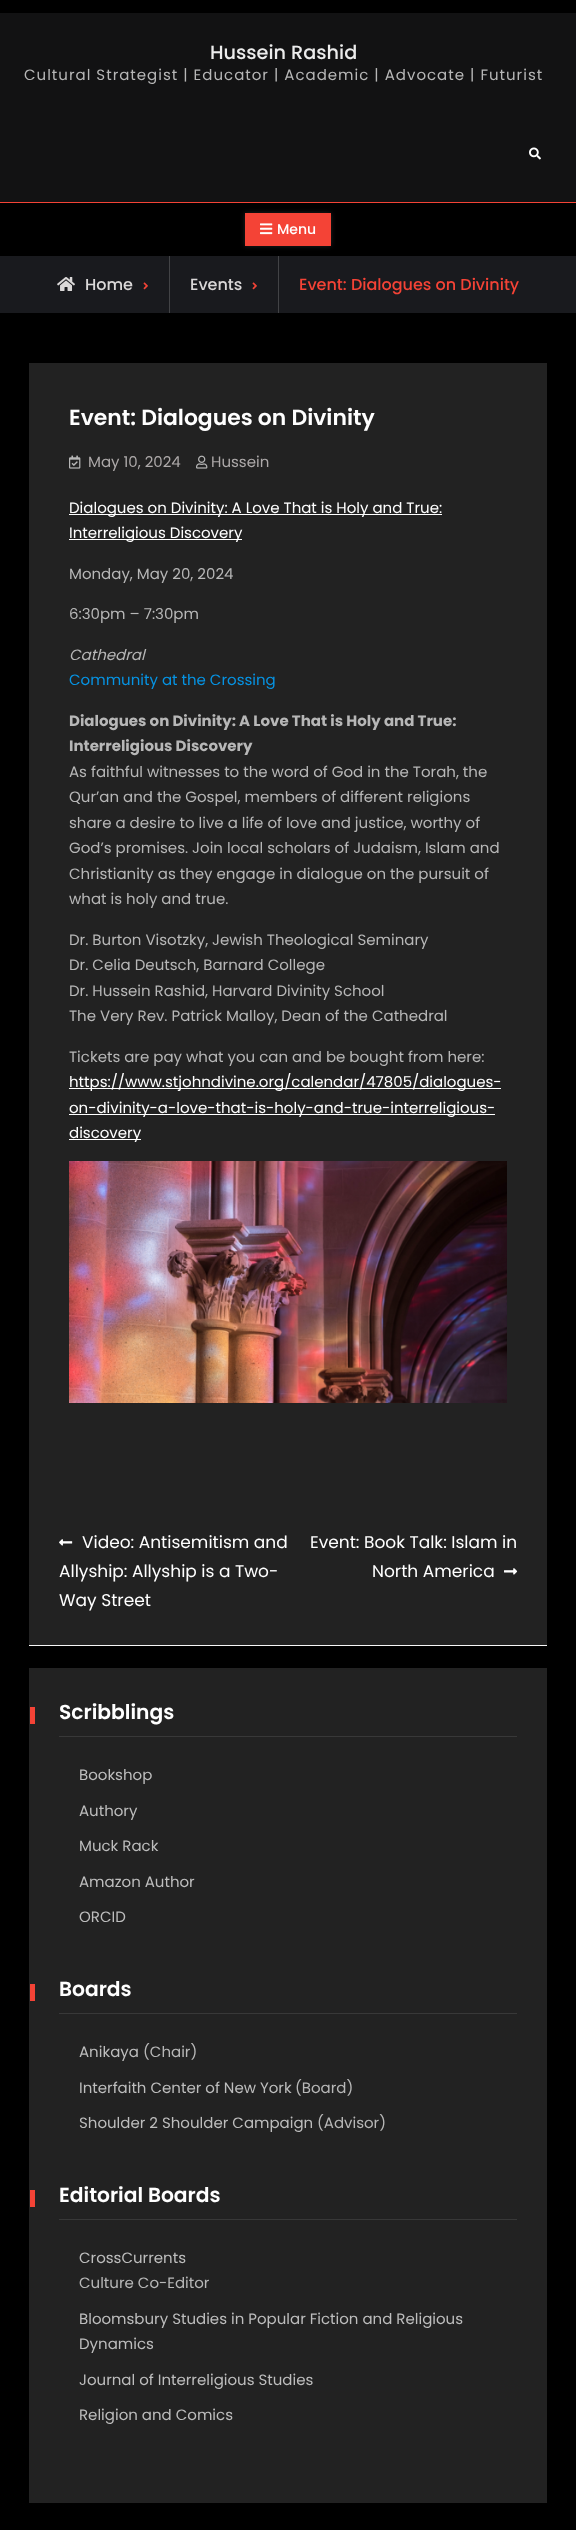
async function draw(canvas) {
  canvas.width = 576
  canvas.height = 2530
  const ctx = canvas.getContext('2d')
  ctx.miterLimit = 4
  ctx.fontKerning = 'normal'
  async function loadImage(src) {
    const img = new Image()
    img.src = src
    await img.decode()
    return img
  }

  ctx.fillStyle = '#000'
  ctx.fillRect(0, 0, 576, 2530)
  ctx.fillStyle = '#121213'
  ctx.fillRect(0, 13, 576, 189)
  ctx.font = '500 19.25px Poppins'
  ctx.fillStyle = '#ececec'
  ctx.fillText('Hussein Rashid', 210, 59)
  ctx.letterSpacing = '1px'
  ctx.font = '15px Poppins'
  ctx.fillStyle = '#b7b7b7'
  ctx.fillText('Cultural Strategist | Educator | Academic | Advocate | Futurist', 24, 80)
  ctx.drawImage(await loadImage('image0.png'), 529, 147, 12, 13)
  ctx.fillStyle = '#f44336'
  ctx.fillRect(0, 202, 576, 1)
  ctx.fillStyle = '#222'
  ctx.filter = 'blur(2.5px)'
  ctx.beginPath()
  ctx.rect(245, 213, 86, 33)
  ctx.fill()
  ctx.filter = 'none'
  ctx.fillStyle = '#f44336'
  ctx.fillRect(245, 213, 86, 33)
  ctx.drawImage(await loadImage('image1.png'), 260, 223, 13, 12)
  ctx.letterSpacing = '0px'
  ctx.font = '500 14px Poppins'
  ctx.fillStyle = '#fff'
  ctx.fillText('Menu', 277, 234)
  ctx.fillStyle = '#191a1e'
  ctx.fillRect(0, 256, 576, 57)
  ctx.fillStyle = '#424346'
  ctx.fillRect(169, 256, 1, 57)
  ctx.drawImage(await loadImage('image2.png'), 57, 277, 18, 14)
  ctx.font = '500 16px Poppins'
  ctx.fillStyle = '#dad8d8'
  ctx.fillText('Home', 85, 290)
  ctx.drawImage(await loadImage('image3.png'), 143, 282, 5, 8)
  ctx.fillStyle = '#424346'
  ctx.fillRect(278, 256, 1, 57)
  ctx.fillStyle = '#dad8d8'
  ctx.fillText('Events', 190, 290)
  ctx.drawImage(await loadImage('image3.png'), 252, 282, 5, 8)
  ctx.fillStyle = '#f44336'
  ctx.fillText('Event: Dialogues on Divinity', 299, 290)
  ctx.fillStyle = '#222'
  ctx.fillRect(29, 363, 518, 1282)
  ctx.font = '600 21.9px Poppins'
  ctx.fillStyle = '#fff'
  ctx.fillText('Event: Dialogues on Divinity', 69, 425)
  ctx.drawImage(await loadImage('image4.png'), 69, 455, 12, 14)
  ctx.font = '15px Poppins'
  ctx.fillStyle = '#ada9a9'
  ctx.fillText('May 10, 2024', 88, 467)
  ctx.drawImage(await loadImage('image5.png'), 196, 455, 12, 14)
  ctx.fillText('Hussein', 211, 467)
  ctx.fillStyle = '#fff'
  ctx.fillRect(69, 514, 373, 1)
  ctx.fillText('Dialogues on Divinity: A Love That is Holy and True:', 69, 513)
  ctx.fillRect(69, 539, 173, 1)
  ctx.fillText('Interreligious Discovery', 69, 538)
  ctx.fillStyle = '#b7b7b7'
  ctx.fillText('Monday, May 20, 2024', 69, 579)
  ctx.fillText('6:30pm – 7:30pm', 69, 619)
  ctx.font = 'italic 15px Poppins'
  ctx.fillText('Cathedral', 69, 660)
  ctx.font = '15px Poppins'
  ctx.fillStyle = '#0693e3'
  ctx.fillText('Community at the Crossing', 69, 685)
  ctx.font = 'bold 15px Poppins'
  ctx.fillStyle = '#b7b7b7'
  ctx.fillText('Dialogues on Divinity: A Love That is Holy and True:', 69, 726)
  ctx.fillText('Interreligious Discovery', 69, 751)
  ctx.font = '15px Poppins'
  ctx.fillText('As faithful witnesses to the word of God in the Torah, the', 69, 777)
  ctx.fillText('Qur’an and the Gospel, members of different religions', 69, 802)
  ctx.fillText('share a desire to live a life of love and justice, worthy of', 69, 828)
  ctx.fillText('God’s promises. Join local scholars of Judaism, Islam and', 69, 853)
  ctx.fillText('Christianity as they engage in dialogue on the pursuit of', 69, 879)
  ctx.fillText('what is holy and true.', 69, 904)
  ctx.fillText('Dr. Burton Visotzky, Jewish Theological Seminary', 69, 945)
  ctx.fillText('Dr. Celia Deutsch, Barnard College', 69, 970)
  ctx.fillText('Dr. Hussein Rashid, Harvard Divinity School', 69, 996)
  ctx.fillText('The Very Rev. Patrick Malloy, Dean of the Cathedral', 69, 1021)
  ctx.fillText('Tickets are pay what you can and be bought from here:', 69, 1062)
  ctx.fillStyle = '#fff'
  ctx.fillRect(69, 1088, 432, 1)
  ctx.fillText('https://www.stjohndivine.org/calendar/47805/dialogues-', 69, 1087)
  ctx.fillRect(69, 1114, 426, 1)
  ctx.fillText('on-divinity-a-love-that-is-holy-and-true-interreligious-', 69, 1113)
  ctx.fillRect(69, 1139, 72, 1)
  ctx.fillText('discovery', 69, 1138)
  ctx.drawImage(await loadImage('image6.png'), 69, 1161, 438, 242)
  ctx.fillStyle = '#f7f7f7'
  ctx.fillRect(29, 1645, 518, 1)
  ctx.drawImage(await loadImage('image7.png'), 59, 1539, 14, 7)
  ctx.font = '17px Poppins'
  ctx.fillStyle = '#fff'
  ctx.fillText('Video: Antisemitism and', 82, 1548)
  ctx.fillText('Allyship: Allyship is a Two-', 59, 1577)
  ctx.fillText('Way Street', 59, 1606)
  ctx.fillText('Event: Book Talk: Islam in', 310, 1548)
  ctx.fillText('North America', 372, 1577)
  ctx.drawImage(await loadImage('image8.png'), 504, 1568, 14, 7)
  ctx.fillStyle = '#222'
  ctx.fillRect(29, 1668, 518, 835)
  ctx.fillStyle = '#383838'
  ctx.fillRect(59, 1736, 458, 1)
  ctx.fillStyle = '#f44336'
  ctx.fillRect(30, 1707, 5, 17)
  ctx.font = '600 20.25px Poppins'
  ctx.fillStyle = '#fff'
  ctx.fillText('Scribblings', 59, 1719)
  ctx.font = '15px Poppins'
  ctx.fillStyle = '#bdbdbd'
  ctx.fillText('Bookshop', 79, 1780)
  ctx.fillText('Authory', 79, 1816)
  ctx.fillText('Muck Rack', 79, 1851)
  ctx.fillText('Amazon Author', 79, 1887)
  ctx.fillText('ORCID', 79, 1922)
  ctx.fillStyle = '#383838'
  ctx.fillRect(59, 2013, 458, 1)
  ctx.fillStyle = '#f44336'
  ctx.fillRect(30, 1984, 5, 17)
  ctx.font = '600 20.25px Poppins'
  ctx.fillStyle = '#fff'
  ctx.fillText('Boards', 59, 1996)
  ctx.font = '15px Poppins'
  ctx.fillStyle = '#bdbdbd'
  ctx.fillText('Anikaya', 79, 2057)
  ctx.fillStyle = '#b7b7b7'
  ctx.fillText('(Chair)', 143, 2057)
  ctx.fillStyle = '#bdbdbd'
  ctx.fillText('Interfaith Center of New York', 79, 2093)
  ctx.fillStyle = '#b7b7b7'
  ctx.fillText('(Board)', 295, 2093)
  ctx.fillStyle = '#bdbdbd'
  ctx.fillText('Shoulder 2 Shoulder Campaign', 79, 2128)
  ctx.fillStyle = '#b7b7b7'
  ctx.fillText('(Advisor)', 317, 2128)
  ctx.fillStyle = '#383838'
  ctx.fillRect(59, 2219, 458, 1)
  ctx.fillStyle = '#f44336'
  ctx.fillRect(30, 2190, 5, 17)
  ctx.font = '600 20.25px Poppins'
  ctx.fillStyle = '#fff'
  ctx.fillText('Editorial Boards', 59, 2202)
  ctx.font = '15px Poppins'
  ctx.fillStyle = '#bdbdbd'
  ctx.fillText('CrossCurrents', 79, 2263)
  ctx.fillStyle = '#b7b7b7'
  ctx.fillText('Culture Co-Editor', 79, 2288)
  ctx.fillStyle = '#bdbdbd'
  ctx.fillText('Bloomsbury Studies in Popular Fiction and Religious', 79, 2324)
  ctx.fillText('Dynamics', 79, 2349)
  ctx.fillText('Journal of Interreligious Studies', 79, 2385)
  ctx.fillText('Religion and Comics', 79, 2420)
}

draw(document.querySelector('canvas'))
